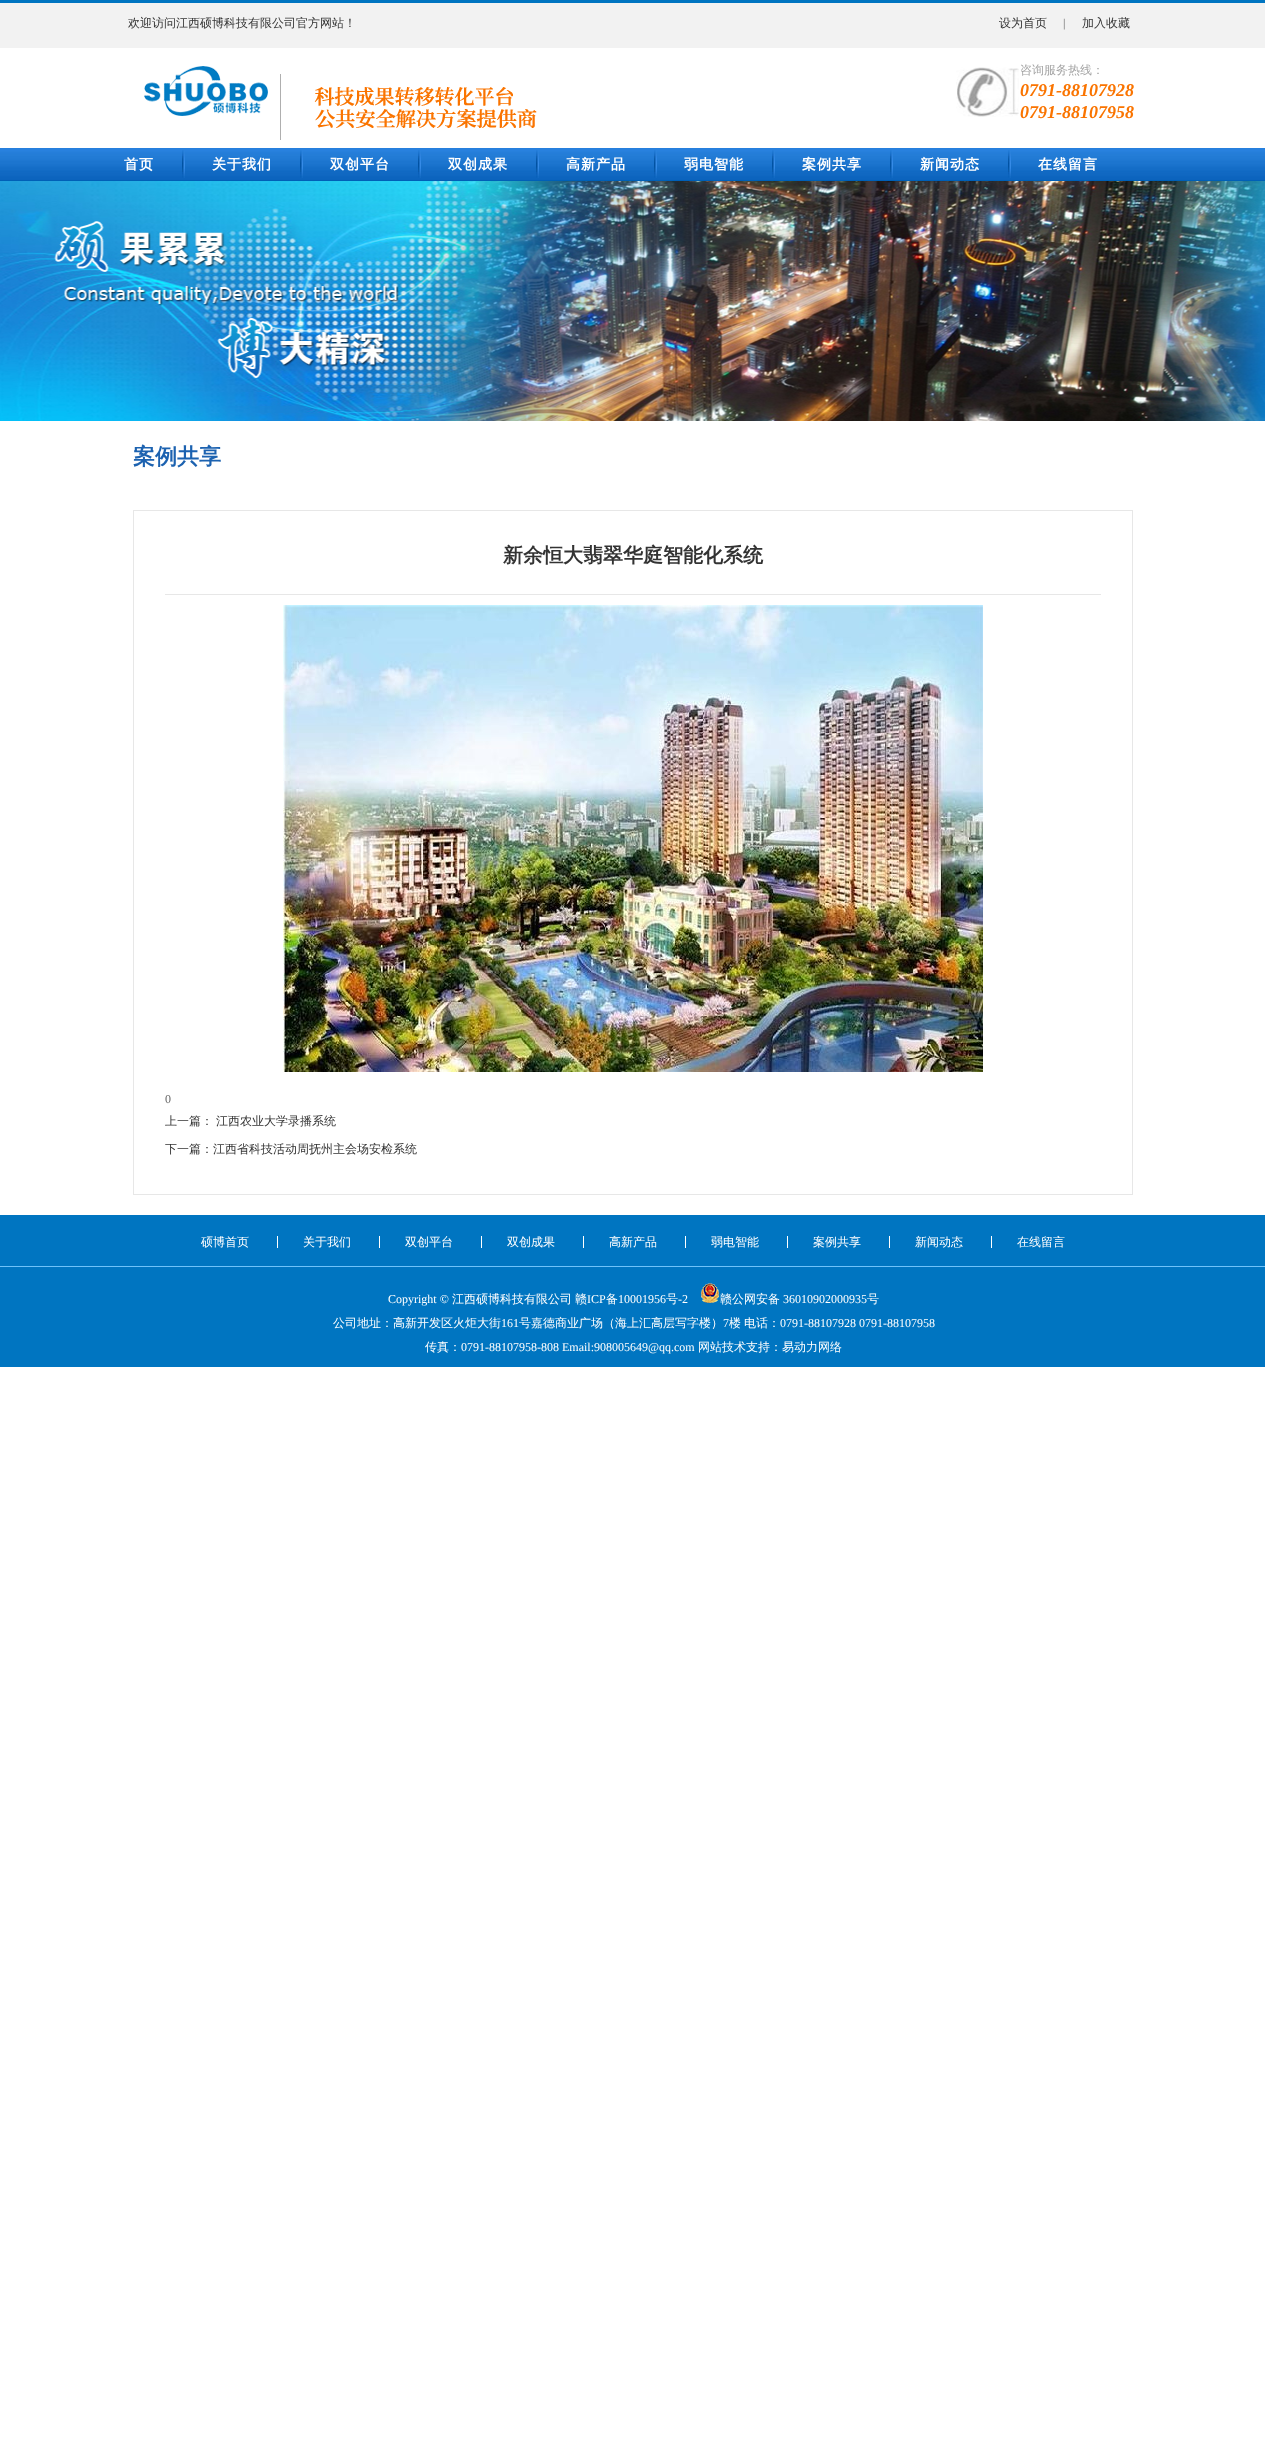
async function draw(canvas) {
  canvas.width = 1265
  canvas.height = 2443
  const ctx = canvas.getContext('2d')
  ctx.miterLimit = 4
  ctx.fontKerning = 'normal'
  async function loadImage(src) {
    const img = new Image()
    img.src = src
    await img.decode()
    return img
  }

  ctx.fillStyle = '#fff'
  ctx.fillRect(0, 0, 1265, 2443)
  ctx.fillStyle = '#f2f2f2'
  ctx.fillRect(0, 3, 1265, 45)
  ctx.fillStyle = '#0075c1'
  ctx.fillRect(0, 0, 1265, 3)
  ctx.font = '500 12px WenQuanYi Zen Hei'
  ctx.fillStyle = '#333'
  ctx.fillText('欢迎访问江西硕博科技有限公司官方网站！', 128, 27)
  ctx.fillText('设为首页', 999, 27)
  ctx.font = '12px Liberation Serif'
  ctx.fillStyle = '#666'
  ctx.fillText('|', 1063, 27)
  ctx.font = '500 12px WenQuanYi Zen Hei'
  ctx.fillStyle = '#333'
  ctx.fillText('加入收藏', 1082, 27)
  ctx.drawImage(await loadImage('image0.png'), 144, 66, 124, 50)
  ctx.fillStyle = '#afafaf'
  ctx.fillRect(280, 74, 1, 66)
  ctx.drawImage(await loadImage('image1.png'), 314, 87, 223, 41)
  ctx.drawImage(await loadImage('image2.png'), 956, 67, 63, 50)
  ctx.fillStyle = '#a3a3a3'
  ctx.fillText('咨询服务热线：', 1020, 74)
  ctx.font = 'italic bold 18px Liberation Serif'
  ctx.fillStyle = '#fa7400'
  ctx.fillText('0791-88107928', 1020, 96)
  ctx.fillText('0791-88107958', 1020, 118)
  ctx.drawImage(await loadImage('image3.png'), 0, 148, 1265, 33)
  ctx.letterSpacing = '1px'
  ctx.font = 'bold 14px WenQuanYi Zen Hei'
  ctx.fillStyle = '#fff'
  ctx.fillText('首页', 124, 169)
  ctx.drawImage(await loadImage('image4.png'), 182, 150, 3, 28)
  ctx.fillText('关于我们', 212, 169)
  ctx.drawImage(await loadImage('image5.png'), 300, 150, 3, 28)
  ctx.fillText('双创平台', 330, 169)
  ctx.drawImage(await loadImage('image4.png'), 418, 150, 3, 28)
  ctx.fillText('双创成果', 448, 169)
  ctx.drawImage(await loadImage('image5.png'), 536, 150, 3, 28)
  ctx.fillText('高新产品', 566, 169)
  ctx.drawImage(await loadImage('image4.png'), 654, 150, 3, 28)
  ctx.fillText('弱电智能', 684, 169)
  ctx.drawImage(await loadImage('image5.png'), 772, 150, 3, 28)
  ctx.fillText('案例共享', 802, 169)
  ctx.drawImage(await loadImage('image4.png'), 890, 150, 3, 28)
  ctx.fillText('新闻动态', 920, 169)
  ctx.drawImage(await loadImage('image4.png'), 1008, 150, 3, 28)
  ctx.fillText('在线留言', 1038, 169)
  ctx.drawImage(await loadImage('image6.png'), 0, 181, 1265, 240)
  ctx.letterSpacing = '0px'
  ctx.font = 'bold 22px WenQuanYi Zen Hei'
  ctx.fillStyle = '#1c62b0'
  ctx.fillText('案例共享', 133, 464)
  ctx.strokeStyle = '#e7e7e7'
  ctx.strokeRect(133.5, 510.5, 999, 684)
  ctx.fillStyle = '#e7e7e7'
  ctx.fillRect(165, 594, 936, 1)
  ctx.font = 'bold 20px WenQuanYi Zen Hei'
  ctx.fillStyle = '#333'
  ctx.fillText('新余恒大翡翠华庭智能化系统', 503, 562)
  ctx.drawImage(await loadImage('image7.png'), 283, 605, 700, 467)
  ctx.font = '12px Liberation Serif'
  ctx.fillStyle = '#666'
  ctx.fillText('0', 165, 1103)
  ctx.font = '500 12px WenQuanYi Zen Hei'
  ctx.fillStyle = '#333'
  ctx.fillText('上一篇：', 165, 1125)
  ctx.fillText('江西农业大学录播系统', 216, 1125)
  ctx.fillText('下一篇：江西省科技活动周抚州主会场安检系统', 165, 1153)
  ctx.fillStyle = '#0075c1'
  ctx.fillRect(0, 1215, 1265, 152)
  ctx.fillStyle = '#6fc2fa'
  ctx.fillRect(0, 1266, 1265, 1)
  ctx.fillStyle = '#fff'
  ctx.fillText('硕博首页', 201, 1246)
  ctx.fillRect(277, 1236, 1, 12)
  ctx.fillText('关于我们', 303, 1246)
  ctx.fillRect(379, 1236, 1, 12)
  ctx.fillText('双创平台', 405, 1246)
  ctx.fillRect(481, 1236, 1, 12)
  ctx.fillText('双创成果', 507, 1246)
  ctx.fillRect(583, 1236, 1, 12)
  ctx.fillText('高新产品', 609, 1246)
  ctx.fillRect(685, 1236, 1, 12)
  ctx.fillText('弱电智能', 711, 1246)
  ctx.fillRect(787, 1236, 1, 12)
  ctx.fillText('案例共享', 813, 1246)
  ctx.fillRect(889, 1236, 1, 12)
  ctx.fillText('新闻动态', 915, 1246)
  ctx.fillRect(991, 1236, 1, 12)
  ctx.fillText('在线留言', 1017, 1246)
  ctx.font = '12px Liberation Serif'
  ctx.fillText('Copyright ©', 388, 1303)
  ctx.font = '500 12px WenQuanYi Zen Hei'
  ctx.fillText('江西硕博科技有限公司', 452, 1303)
  ctx.fillText('赣', 575, 1303)
  ctx.font = '12px Liberation Serif'
  ctx.fillText('ICP', 587, 1303)
  ctx.font = '500 12px WenQuanYi Zen Hei'
  ctx.fillText('备', 606, 1303)
  ctx.font = '12px Liberation Serif'
  ctx.fillText('10001956', 618, 1303)
  ctx.font = '500 12px WenQuanYi Zen Hei'
  ctx.fillText('号', 666, 1303)
  ctx.font = '12px Liberation Serif'
  ctx.fillText('-2', 678, 1303)
  ctx.drawImage(await loadImage('image8.png'), 701, 1283, 18, 20)
  ctx.font = '500 12px WenQuanYi Zen Hei'
  ctx.fillText('赣公网安备', 720, 1303)
  ctx.font = '12px Liberation Serif'
  ctx.fillText('36010902000935', 783, 1303)
  ctx.font = '500 12px WenQuanYi Zen Hei'
  ctx.fillText('号', 867, 1303)
  ctx.fillText('公司地址：高新开发区火炬大街', 333, 1327)
  ctx.font = '12px Liberation Serif'
  ctx.fillText('161', 501, 1327)
  ctx.font = '500 12px WenQuanYi Zen Hei'
  ctx.fillText('号嘉德商业广场（海上汇高层写字楼）', 519, 1327)
  ctx.font = '12px Liberation Serif'
  ctx.fillText('7', 723, 1327)
  ctx.font = '500 12px WenQuanYi Zen Hei'
  ctx.fillText('楼', 729, 1327)
  ctx.fillText('电话：', 744, 1327)
  ctx.font = '12px Liberation Serif'
  ctx.fillText('0791-88107928 0791-88107958', 780, 1327)
  ctx.font = '500 12px WenQuanYi Zen Hei'
  ctx.fillText('传真：', 425, 1351)
  ctx.font = '12px Liberation Serif'
  ctx.fillText('0791-88107958-808 Email:908005649@qq.com', 461, 1351)
  ctx.font = '500 12px WenQuanYi Zen Hei'
  ctx.fillText('网站技术支持：易动力网络', 698, 1351)
}

draw(document.querySelector('canvas'))
